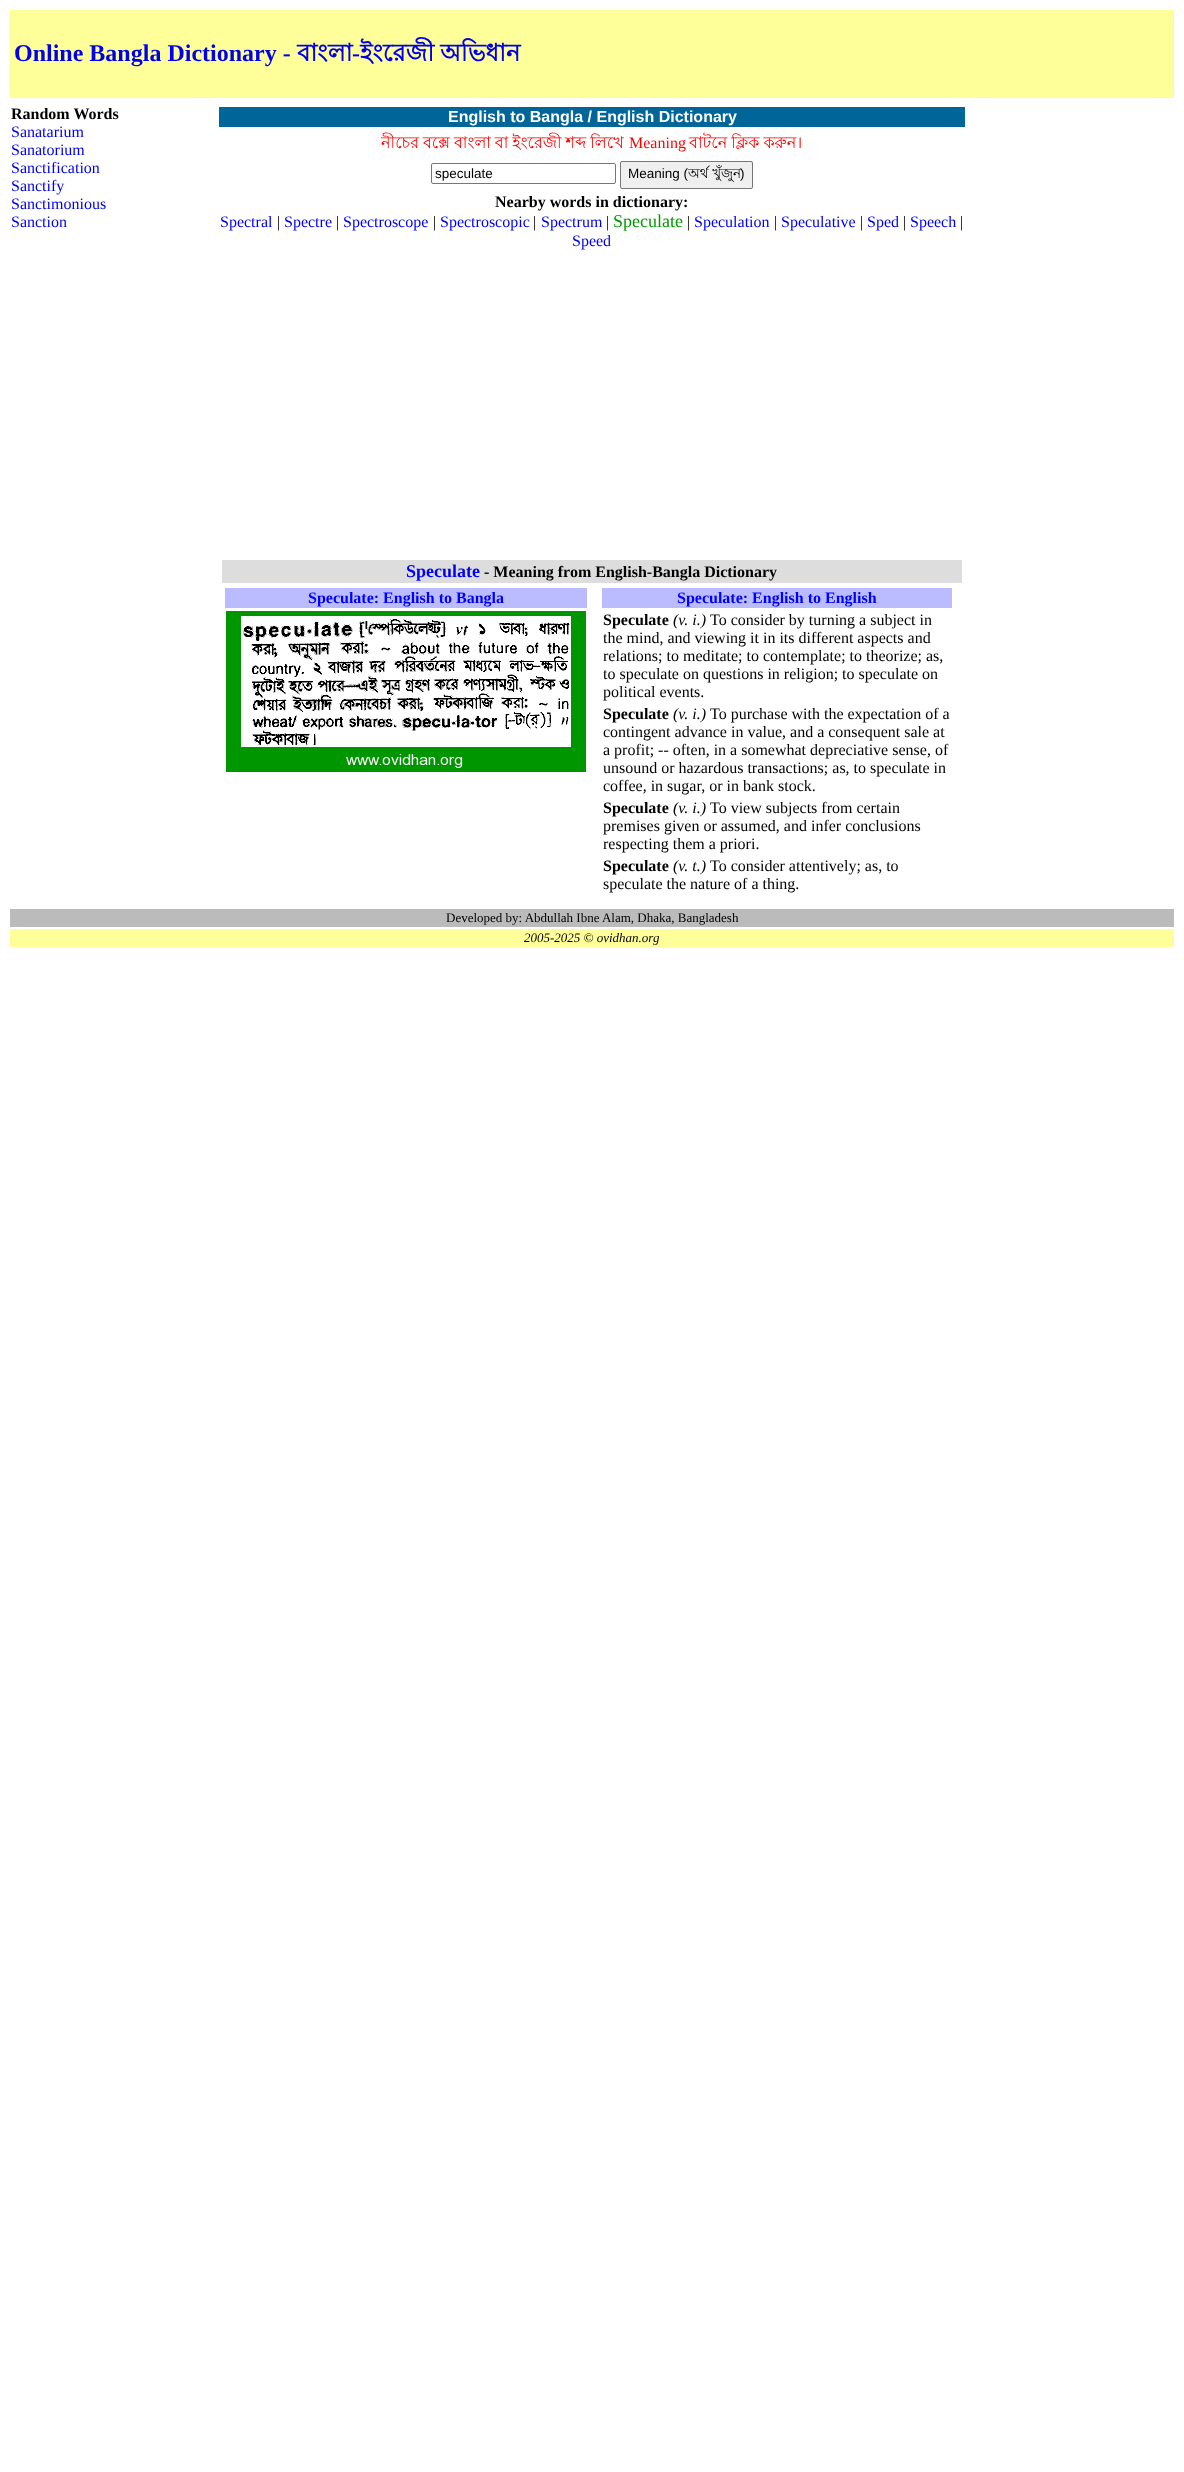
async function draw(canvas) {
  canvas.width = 1184
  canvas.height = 2472
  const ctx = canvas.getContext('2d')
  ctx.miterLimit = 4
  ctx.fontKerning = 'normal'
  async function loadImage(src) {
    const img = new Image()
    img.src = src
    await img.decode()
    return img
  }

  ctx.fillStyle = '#fff'
  ctx.fillRect(0, 0, 1184, 2472)
  ctx.fillStyle = '#ff9'
  ctx.fillRect(10, 10, 1164, 88)
  ctx.font = 'bold 24px Liberation Serif'
  ctx.fillStyle = '#00e'
  ctx.fillText('Online Bangla Dictionary -', 14, 61)
  ctx.font = 'bold 24px Lohit Bengali'
  ctx.fillText('বাংলা', 297, 61)
  ctx.font = 'bold 24px Liberation Serif'
  ctx.fillText('-', 352, 61)
  ctx.font = 'bold 24px Lohit Bengali'
  ctx.fillText('ইংরেজী', 360, 61)
  ctx.fillText('অভিধান', 440, 61)
  ctx.font = 'bold 16px Liberation Serif'
  ctx.fillStyle = '#000'
  ctx.fillText('Random Words', 11, 119)
  ctx.font = '16px Liberation Serif'
  ctx.fillStyle = '#00e'
  ctx.fillText('Sanatarium', 11, 137)
  ctx.fillText('Sanatorium', 11, 155)
  ctx.fillText('Sanctification', 11, 173)
  ctx.fillText('Sanctify', 11, 191)
  ctx.fillText('Sanctimonious', 11, 209)
  ctx.fillText('Sanction', 11, 227)
  ctx.fillStyle = '#069'
  ctx.fillRect(219, 107, 746, 20)
  ctx.font = 'bold 16px Liberation Sans'
  ctx.fillStyle = '#fff'
  ctx.fillText('English to Bangla / English Dictionary', 448, 122)
  ctx.wordSpacing = '-0.5px'
  ctx.font = '16px Lohit Bengali'
  ctx.fillStyle = '#f00'
  ctx.fillText('নীচের বক্সে বাংলা বা ইংরেজী শব্দ লিখে', 381, 148)
  ctx.wordSpacing = '0px'
  ctx.font = '16px Liberation Serif'
  ctx.fillText('Meaning', 629, 148)
  ctx.wordSpacing = '-0.5px'
  ctx.font = '16px Lohit Bengali'
  ctx.fillText('বাটনে ক্লিক করুন।', 689, 148)
  ctx.beginPath()
  ctx.roundRect(431.5, 163.5, 184, 20, 1.5)
  ctx.strokeStyle = '#767676'
  ctx.stroke()
  ctx.wordSpacing = '0px'
  ctx.font = '13.5px Liberation Sans'
  ctx.fillStyle = '#000'
  ctx.fillText('speculate', 435, 178)
  ctx.fillStyle = '#efefef'
  ctx.beginPath()
  ctx.roundRect(620.5, 161.5, 132, 27, 1.5)
  ctx.fill()
  ctx.stroke()
  ctx.fillStyle = '#000'
  ctx.fillText('Meaning (', 628, 178)
  ctx.font = '13.5px Lohit Bengali'
  ctx.fillText('অর্থ খুঁজুন', 688, 178)
  ctx.font = '13.5px Liberation Sans'
  ctx.fillText(')', 740, 178)
  ctx.font = 'bold 16px Liberation Serif'
  ctx.fillText('Nearby words in dictionary:', 495, 207)
  ctx.font = '16px Liberation Serif'
  ctx.fillStyle = '#00e'
  ctx.fillText('Spectral', 220, 227)
  ctx.fillStyle = '#000'
  ctx.fillText('|', 277, 227)
  ctx.fillStyle = '#00e'
  ctx.fillText('Spectre', 284, 227)
  ctx.fillStyle = '#000'
  ctx.fillText('|', 336, 227)
  ctx.fillStyle = '#00e'
  ctx.fillText('Spectroscope', 343, 227)
  ctx.fillStyle = '#000'
  ctx.fillText('|', 433, 227)
  ctx.fillStyle = '#00e'
  ctx.fillText('Spectroscopic', 440, 227)
  ctx.fillStyle = '#000'
  ctx.fillText('|', 533, 227)
  ctx.fillStyle = '#00e'
  ctx.fillText('Spectrum', 541, 227)
  ctx.fillStyle = '#000'
  ctx.fillText('|', 606, 227)
  ctx.font = '18px Liberation Serif'
  ctx.fillStyle = '#090'
  ctx.fillText('Speculate', 613, 227)
  ctx.font = '16px Liberation Serif'
  ctx.fillStyle = '#000'
  ctx.fillText('|', 687, 227)
  ctx.fillStyle = '#00e'
  ctx.fillText('Speculation', 694, 227)
  ctx.fillStyle = '#000'
  ctx.fillText('|', 774, 227)
  ctx.fillStyle = '#00e'
  ctx.fillText('Speculative', 781, 227)
  ctx.fillStyle = '#000'
  ctx.fillText('|', 860, 227)
  ctx.fillStyle = '#00e'
  ctx.fillText('Sped', 867, 227)
  ctx.fillStyle = '#000'
  ctx.fillText('|', 903, 227)
  ctx.fillStyle = '#00e'
  ctx.fillText('Speech', 910, 227)
  ctx.fillStyle = '#000'
  ctx.fillText('|', 960, 227)
  ctx.fillStyle = '#00e'
  ctx.fillText('Speed', 572, 246)
  ctx.fillStyle = '#ddd'
  ctx.fillRect(222, 560, 740, 23)
  ctx.font = 'bold 18px Liberation Serif'
  ctx.fillStyle = '#00f'
  ctx.fillText('Speculate', 406, 577)
  ctx.font = 'bold 16px Liberation Serif'
  ctx.fillStyle = '#000'
  ctx.fillText('- Meaning from English-Bangla Dictionary', 484, 577)
  ctx.fillStyle = '#bbf'
  ctx.fillRect(225, 588, 362, 20)
  ctx.fillStyle = '#00f'
  ctx.fillText('Speculate: English to Bangla', 308, 603)
  ctx.drawImage(await loadImage('image0.png'), 226, 611, 360, 161)
  ctx.fillStyle = '#bbf'
  ctx.fillRect(602, 588, 350, 20)
  ctx.fillStyle = '#00f'
  ctx.fillText('Speculate: English to English', 677, 603)
  ctx.fillStyle = '#000'
  ctx.fillText('Speculate', 603, 625)
  ctx.font = 'italic 16px Liberation Serif'
  ctx.fillText('(v. i.)', 673, 625)
  ctx.font = '16px Liberation Serif'
  ctx.fillText('To consider by turning a subject in', 710, 625)
  ctx.fillText('the mind, and viewing it in its different aspects and', 603, 643)
  ctx.fillText('relations; to meditate; to contemplate; to theorize; as,', 603, 661)
  ctx.fillText('to speculate on questions in religion; to speculate on', 603, 679)
  ctx.fillText('political events.', 603, 697)
  ctx.font = 'bold 16px Liberation Serif'
  ctx.fillText('Speculate', 603, 719)
  ctx.font = 'italic 16px Liberation Serif'
  ctx.fillText('(v. i.)', 673, 719)
  ctx.font = '16px Liberation Serif'
  ctx.fillText('To purchase with the expectation of a', 710, 719)
  ctx.fillText('contingent advance in value, and a consequent sale at', 603, 737)
  ctx.fillText('a profit; -- often, in a somewhat depreciative sense, of', 603, 755)
  ctx.fillText('unsound or hazardous transactions; as, to speculate in', 603, 773)
  ctx.fillText('coffee, in sugar, or in bank stock.', 603, 791)
  ctx.font = 'bold 16px Liberation Serif'
  ctx.fillText('Speculate', 603, 813)
  ctx.font = 'italic 16px Liberation Serif'
  ctx.fillText('(v. i.)', 673, 813)
  ctx.font = '16px Liberation Serif'
  ctx.fillText('To view subjects from certain', 710, 813)
  ctx.fillText('premises given or assumed, and infer conclusions', 603, 831)
  ctx.fillText('respecting them a priori.', 603, 849)
  ctx.font = 'bold 16px Liberation Serif'
  ctx.fillText('Speculate', 603, 871)
  ctx.font = 'italic 16px Liberation Serif'
  ctx.fillText('(v. t.)', 673, 871)
  ctx.font = '16px Liberation Serif'
  ctx.fillText('To consider attentively; as, to', 710, 871)
  ctx.fillText('speculate the nature of a thing.', 603, 889)
  ctx.fillStyle = '#bbb'
  ctx.fillRect(10, 909, 1164, 18)
  ctx.font = '13px Liberation Serif'
  ctx.fillStyle = '#000'
  ctx.fillText('Developed by: Abdullah Ibne Alam, Dhaka, Bangladesh', 446, 922)
  ctx.fillStyle = '#ff9'
  ctx.fillRect(10, 929, 1164, 18)
  ctx.font = 'italic 13px Liberation Serif'
  ctx.fillStyle = '#000'
  ctx.fillText('2005-2025 © ovidhan.org', 524, 942)
}

draw(document.querySelector('canvas'))
